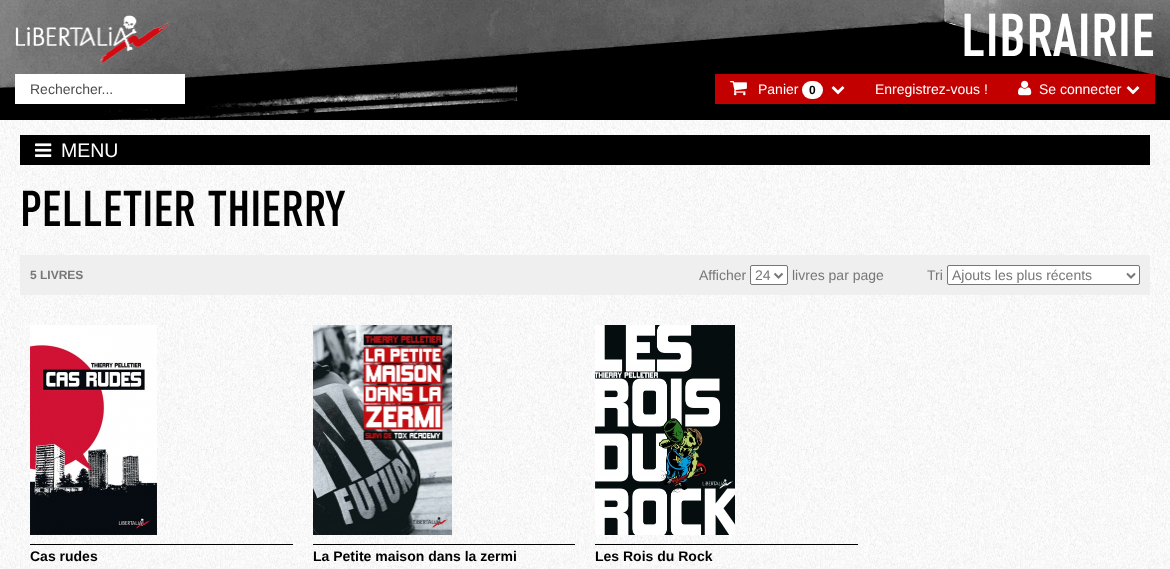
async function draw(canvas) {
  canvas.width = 1170
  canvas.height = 569
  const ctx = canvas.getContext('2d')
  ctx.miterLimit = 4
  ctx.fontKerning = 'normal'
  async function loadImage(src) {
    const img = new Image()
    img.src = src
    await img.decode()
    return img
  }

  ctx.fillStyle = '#fff'
  ctx.fillRect(0, 0, 1170, 569)
  ctx.drawImage(await loadImage('image0.png'), 0, 0, 1170, 120)
  ctx.drawImage(await loadImage('image1.png'), 15, 15, 156, 49)
  ctx.font = '60.5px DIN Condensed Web'
  ctx.fillText('LIBRAIRIE', 961, 56)
  ctx.fillRect(15, 74, 170, 30)
  ctx.font = '14px Liberation Sans'
  ctx.fillStyle = '#4d4d4d'
  ctx.fillText('Rechercher...', 30, 94)
  ctx.fillStyle = '#c20000'
  ctx.fillRect(715, 74, 440, 30)
  ctx.drawImage(await loadImage('image2.png'), 730, 81, 17, 15)
  ctx.fillStyle = '#fff'
  ctx.fillText('Panier', 758, 94)
  ctx.beginPath()
  ctx.roundRect(802, 81, 21, 18, 9)
  ctx.fill()
  ctx.font = 'bold 12px Liberation Sans'
  ctx.fillStyle = '#000'
  ctx.fillText('0', 809, 94)
  ctx.drawImage(await loadImage('image3.png'), 831, 86, 14, 9)
  ctx.font = '14px Liberation Sans'
  ctx.fillStyle = '#fff'
  ctx.fillText('Enregistrez-vous !', 875, 94)
  ctx.drawImage(await loadImage('image4.png'), 1018, 80, 14, 16)
  ctx.fillText('Se connecter', 1039, 94)
  ctx.drawImage(await loadImage('image3.png'), 1126, 86, 14, 9)
  ctx.drawImage(await loadImage('image5.png'), 0, 120, 1170, 449)
  ctx.fillStyle = '#000'
  ctx.fillRect(20, 135, 1130, 30)
  ctx.drawImage(await loadImage('image6.png'), 35, 143, 17, 14)
  ctx.font = '19.5px Liberation Sans'
  ctx.fillStyle = '#fff'
  ctx.fillText('MENU', 61, 157)
  ctx.font = '50.5px DIN Condensed Web'
  ctx.fillStyle = '#000'
  ctx.fillText('PELLETIER THIERRY', 20, 226)
  ctx.fillStyle = '#efefef'
  ctx.fillRect(20, 255, 1130, 40)
  ctx.font = 'bold 12px Liberation Sans'
  ctx.fillStyle = '#777'
  ctx.fillText('5 LIVRES', 30, 279)
  ctx.font = '14px Liberation Sans'
  ctx.fillText('Afficher', 699, 280)
  ctx.fillStyle = '#fff'
  ctx.beginPath()
  ctx.roundRect(750.5, 265.5, 37, 19, 1.5)
  ctx.fill()
  ctx.strokeStyle = '#767676'
  ctx.stroke()
  ctx.beginPath()
  ctx.moveTo(774.5, 273.5)
  ctx.lineTo(778.5, 277.5)
  ctx.lineTo(782.5, 273.5)
  ctx.strokeStyle = '#777'
  ctx.lineWidth = 2
  ctx.stroke()
  ctx.fillStyle = '#777'
  ctx.fillText('24', 755, 280)
  ctx.fillText('livres par page', 792, 280)
  ctx.fillText('Tri', 927, 280)
  ctx.fillStyle = '#fff'
  ctx.beginPath()
  ctx.roundRect(947.5, 265.5, 192, 19, 1.5)
  ctx.fill()
  ctx.strokeStyle = '#767676'
  ctx.lineWidth = 1
  ctx.stroke()
  ctx.beginPath()
  ctx.moveTo(1127, 273.5)
  ctx.lineTo(1131, 277.5)
  ctx.lineTo(1135, 273.5)
  ctx.strokeStyle = '#777'
  ctx.lineWidth = 2
  ctx.stroke()
  ctx.fillStyle = '#777'
  ctx.fillText('Ajouts les plus récents', 952, 280)
  ctx.fillStyle = '#000'
  ctx.fillRect(30, 544, 263, 1)
  ctx.drawImage(await loadImage('image7.png'), 30, 325, 127, 210)
  ctx.font = 'bold 14px Liberation Sans'
  ctx.fillText('Cas rudes', 30, 561)
  ctx.fillRect(313, 544, 262, 1)
  ctx.drawImage(await loadImage('image8.png'), 313, 325, 139, 210)
  ctx.fillText('La Petite maison dans la zermi', 313, 561)
  ctx.fillRect(595, 544, 263, 1)
  ctx.drawImage(await loadImage('image9.png'), 595, 325, 140, 210)
  ctx.fillText('Les Rois du Rock', 595, 561)
}

draw(document.querySelector('canvas'))
